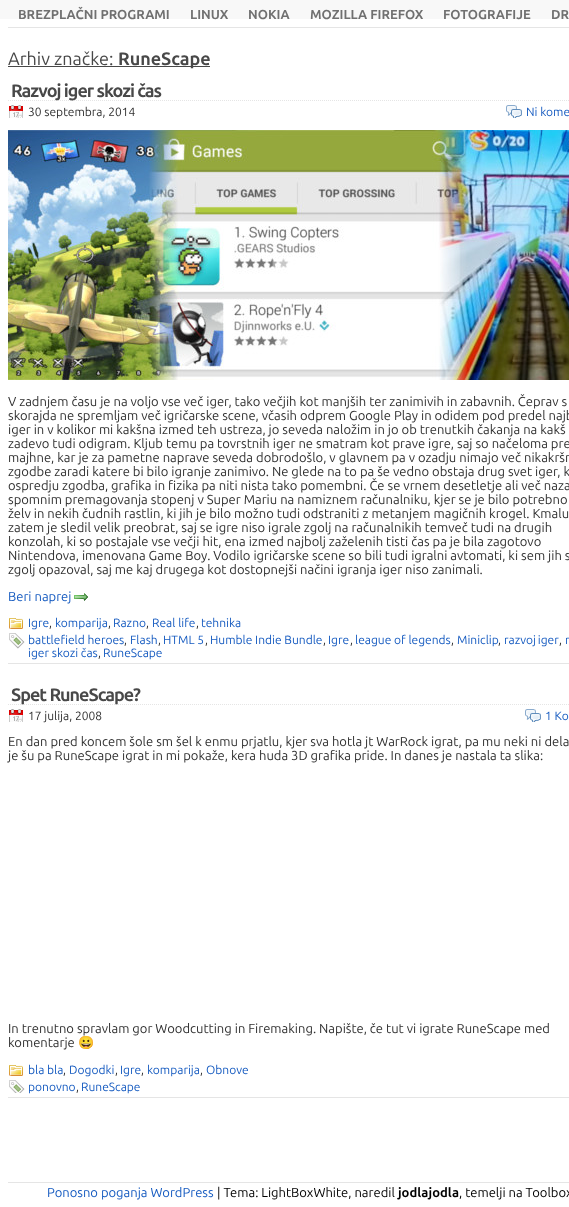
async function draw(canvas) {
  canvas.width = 569
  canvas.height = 1207
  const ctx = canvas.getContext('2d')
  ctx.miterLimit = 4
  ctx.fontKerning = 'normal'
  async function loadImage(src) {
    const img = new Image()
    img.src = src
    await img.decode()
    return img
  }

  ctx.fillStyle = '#fff'
  ctx.fillRect(0, 0, 569, 1207)
  ctx.fillStyle = '#f8f8f8'
  ctx.fillRect(0, 0, 569, 19)
  ctx.fillStyle = '#e5e5e5'
  ctx.fillRect(8, 27, 561, 1)
  ctx.font = 'bold 13px Ubuntu'
  ctx.fillStyle = '#707070'
  ctx.fillText('BREZPLAČNI PROGRAMI', 18, 19)
  ctx.fillText('LINUX', 190, 19)
  ctx.fillText('NOKIA', 248, 19)
  ctx.fillText('MOZILLA FIREFOX', 310, 19)
  ctx.fillText('FOTOGRAFIJE', 443, 19)
  ctx.fillText('DR', 551, 19)
  ctx.font = '18px Ubuntu'
  ctx.fillStyle = '#484848'
  ctx.fillText('Arhiv značke:', 8, 65)
  ctx.fillRect(8, 66, 202, 1)
  ctx.font = 'bold 18px Ubuntu'
  ctx.fillText('RuneScape', 118, 65)
  ctx.beginPath()
  ctx.moveTo(8, 100.5)
  ctx.lineTo(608, 100.5)
  ctx.strokeStyle = '#e5e5e5'
  ctx.setLineDash([1, 1])
  ctx.stroke()
  ctx.letterSpacing = '-1px'
  ctx.fillText('Razvoj iger skozi čas', 11, 97)
  ctx.drawImage(await loadImage('image0.png'), 9, 105, 14, 13)
  ctx.letterSpacing = '0px'
  ctx.font = '12px Ubuntu'
  ctx.fillStyle = '#303030'
  ctx.fillText('30 septembra, 2014', 28, 116)
  ctx.drawImage(await loadImage('image1.png'), 506, 105, 16, 13)
  ctx.fillStyle = '#165bc0'
  ctx.fillText('Ni kome', 526, 116)
  ctx.drawImage(await loadImage('image2.png'), 8, 130, 561, 250)
  ctx.font = '13px Ubuntu'
  ctx.fillStyle = '#303030'
  ctx.fillText('V zadnjem času je na voljo vse več iger, tako večjih kot manjših ter zanimivih in zabavnih. Čeprav s', 8, 406)
  ctx.fillText('skorajda ne spremljam več igričarske scene, včasih odprem Google Play in odidem pod predel najb', 8, 420)
  ctx.fillText('iger in v kolikor mi kakšna izmed teh ustreza, jo seveda naložim in jo ob trenutkih čakanja na kakš', 8, 434)
  ctx.fillText('zadevo tudi odigram. Kljub temu pa tovrstnih iger ne smatram kot prave igre, saj so načeloma pre', 8, 448)
  ctx.fillText('majhne, kar je za pametne naprave seveda dobrodošlo, v glavnem pa v ozadju nimajo več nikakršn', 8, 462)
  ctx.fillText('zgodbe zaradi katere bi bilo igranje zanimivo. Ne glede na to pa še vedno obstaja drug svet iger, k', 8, 476)
  ctx.fillText('ospredju zgodba, grafika in fizika pa niti nista tako pomembni. Če se vrnem desetletje ali več naza', 8, 490)
  ctx.fillText('spomnim premagovanja stopenj v Super Mariu na namiznem računalniku, kjer se je bilo potrebno', 8, 504)
  ctx.fillText('želv in nekih čudnih rastlin, ki jih je bilo možno tudi odstraniti z metanjem magičnih krogel. Kmalu', 8, 518)
  ctx.fillText('zatem je sledil velik preobrat, saj se igre niso igrale zgolj na računalnikih temveč tudi na drugih', 8, 532)
  ctx.fillText('konzolah, ki so postajale vse večji hit, ena izmed najbolj zaželenih tisti čas pa je bila zagotovo', 8, 546)
  ctx.fillText('Nintendova, imenovana Game Boy. Vodilo igričarske scene so bili tudi igralni avtomati, ki sem jih s', 8, 560)
  ctx.fillText('zgolj opazoval, saj me kaj drugega kot dostopnejši načini igranja iger niso zanimali.', 8, 574)
  ctx.fillStyle = '#165bc0'
  ctx.fillText('Beri naprej', 8, 601)
  ctx.drawImage(await loadImage('image3.png'), 74, 593, 14, 8)
  ctx.fillStyle = '#e5e5e5'
  ctx.fillRect(8, 663, 561, 1)
  ctx.drawImage(await loadImage('image4.png'), 9, 618, 14, 11)
  ctx.font = '12px Ubuntu'
  ctx.fillStyle = '#165bc0'
  ctx.fillText('Igre', 28, 627)
  ctx.fillStyle = '#303030'
  ctx.fillText(',', 49, 627)
  ctx.fillStyle = '#165bc0'
  ctx.fillText('komparija', 55, 627)
  ctx.fillStyle = '#303030'
  ctx.fillText(',', 108, 627)
  ctx.fillStyle = '#165bc0'
  ctx.fillText('Razno', 113, 627)
  ctx.fillStyle = '#303030'
  ctx.fillText(',', 146, 627)
  ctx.fillStyle = '#165bc0'
  ctx.fillText('Real life', 152, 627)
  ctx.fillStyle = '#303030'
  ctx.fillText(',', 196, 627)
  ctx.fillStyle = '#165bc0'
  ctx.fillText('tehnika', 201, 627)
  ctx.drawImage(await loadImage('image5.png'), 9, 633, 16, 16)
  ctx.fillText('battlefield heroes', 28, 644)
  ctx.fillStyle = '#303030'
  ctx.fillText(',', 124, 644)
  ctx.fillStyle = '#165bc0'
  ctx.fillText('Flash', 130, 644)
  ctx.fillStyle = '#303030'
  ctx.fillText(',', 158, 644)
  ctx.fillStyle = '#165bc0'
  ctx.fillText('HTML 5', 163, 644)
  ctx.fillStyle = '#303030'
  ctx.fillText(',', 205, 644)
  ctx.fillStyle = '#165bc0'
  ctx.fillText('Humble Indie Bundle', 210, 644)
  ctx.fillStyle = '#303030'
  ctx.fillText(',', 323, 644)
  ctx.fillStyle = '#165bc0'
  ctx.fillText('Igre', 328, 644)
  ctx.fillStyle = '#303030'
  ctx.fillText(',', 350, 644)
  ctx.fillStyle = '#165bc0'
  ctx.fillText('league of legends', 355, 644)
  ctx.fillStyle = '#303030'
  ctx.fillText(',', 451, 644)
  ctx.fillStyle = '#165bc0'
  ctx.fillText('Miniclip', 457, 644)
  ctx.fillStyle = '#303030'
  ctx.fillText(',', 498, 644)
  ctx.wordSpacing = '-1px'
  ctx.fillStyle = '#165bc0'
  ctx.fillText('razvoj iger', 504, 644)
  ctx.wordSpacing = '0px'
  ctx.fillStyle = '#303030'
  ctx.fillText(',', 559, 644)
  ctx.fillStyle = '#165bc0'
  ctx.fillText('r', 565, 644)
  ctx.fillText('iger skozi čas', 28, 657)
  ctx.fillStyle = '#303030'
  ctx.fillText(',', 98, 657)
  ctx.fillStyle = '#165bc0'
  ctx.fillText('RuneScape', 103, 657)
  ctx.beginPath()
  ctx.moveTo(8, 704.5)
  ctx.lineTo(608, 704.5)
  ctx.stroke()
  ctx.letterSpacing = '-1px'
  ctx.font = 'bold 18px Ubuntu'
  ctx.fillStyle = '#484848'
  ctx.fillText('Spet RuneScape?', 11, 701)
  ctx.drawImage(await loadImage('image0.png'), 9, 709, 14, 13)
  ctx.letterSpacing = '0px'
  ctx.font = '12px Ubuntu'
  ctx.fillStyle = '#303030'
  ctx.fillText('17 julija, 2008', 28, 720)
  ctx.drawImage(await loadImage('image1.png'), 525, 709, 16, 13)
  ctx.fillStyle = '#165bc0'
  ctx.fillText('1 Ko', 545, 720)
  ctx.font = '13px Ubuntu'
  ctx.fillStyle = '#303030'
  ctx.fillText('En dan pred koncem šole sm šel k enmu prjatlu, kjer sva hotla jt WarRock igrat, pa mu neki ni dela', 8, 746)
  ctx.fillText('je šu pa RuneScape igrat in mi pokaže, kera huda 3D grafika pride. In danes je nastala ta slika:', 8, 760)
  ctx.fillText('In trenutno spravlam gor Woodcutting in Firemaking. Napište, če tut vi igrate RuneScape med', 8, 1033)
  ctx.fillText('komentarje', 8, 1047)
  ctx.font = '13px Noto Color Emoji'
  ctx.fillText('😀', 78, 1047)
  ctx.fillStyle = '#e5e5e5'
  ctx.fillRect(8, 1097, 561, 1)
  ctx.drawImage(await loadImage('image4.png'), 9, 1065, 14, 11)
  ctx.font = '12px Ubuntu'
  ctx.fillStyle = '#165bc0'
  ctx.fillText('bla bla', 28, 1074)
  ctx.fillStyle = '#303030'
  ctx.fillText(',', 63, 1074)
  ctx.fillStyle = '#165bc0'
  ctx.fillText('Dogodki', 69, 1074)
  ctx.fillStyle = '#303030'
  ctx.fillText(',', 115, 1074)
  ctx.fillStyle = '#165bc0'
  ctx.fillText('Igre', 120, 1074)
  ctx.fillStyle = '#303030'
  ctx.fillText(',', 141, 1074)
  ctx.fillStyle = '#165bc0'
  ctx.fillText('komparija', 147, 1074)
  ctx.fillStyle = '#303030'
  ctx.fillText(',', 200, 1074)
  ctx.fillStyle = '#165bc0'
  ctx.fillText('Obnove', 206, 1074)
  ctx.drawImage(await loadImage('image6.png'), 9, 1080, 16, 13)
  ctx.fillText('ponovno', 28, 1091)
  ctx.fillStyle = '#303030'
  ctx.fillText(',', 76, 1091)
  ctx.fillStyle = '#165bc0'
  ctx.fillText('RuneScape', 81, 1091)
  ctx.fillStyle = '#e5e5e5'
  ctx.fillRect(8, 1182, 561, 1)
  ctx.font = '13px Ubuntu'
  ctx.fillStyle = '#165bc0'
  ctx.fillText('Ponosno poganja WordPress', 47, 1197)
  ctx.fillStyle = '#000'
  ctx.fillText('| Tema: LightBoxWhite, naredil', 217, 1197)
  ctx.font = 'bold 13px Ubuntu'
  ctx.fillText('jodlajodla', 398, 1197)
  ctx.font = '13px Ubuntu'
  ctx.fillText(', temelji na Toolbox', 459, 1197)
}

draw(document.querySelector('canvas'))
